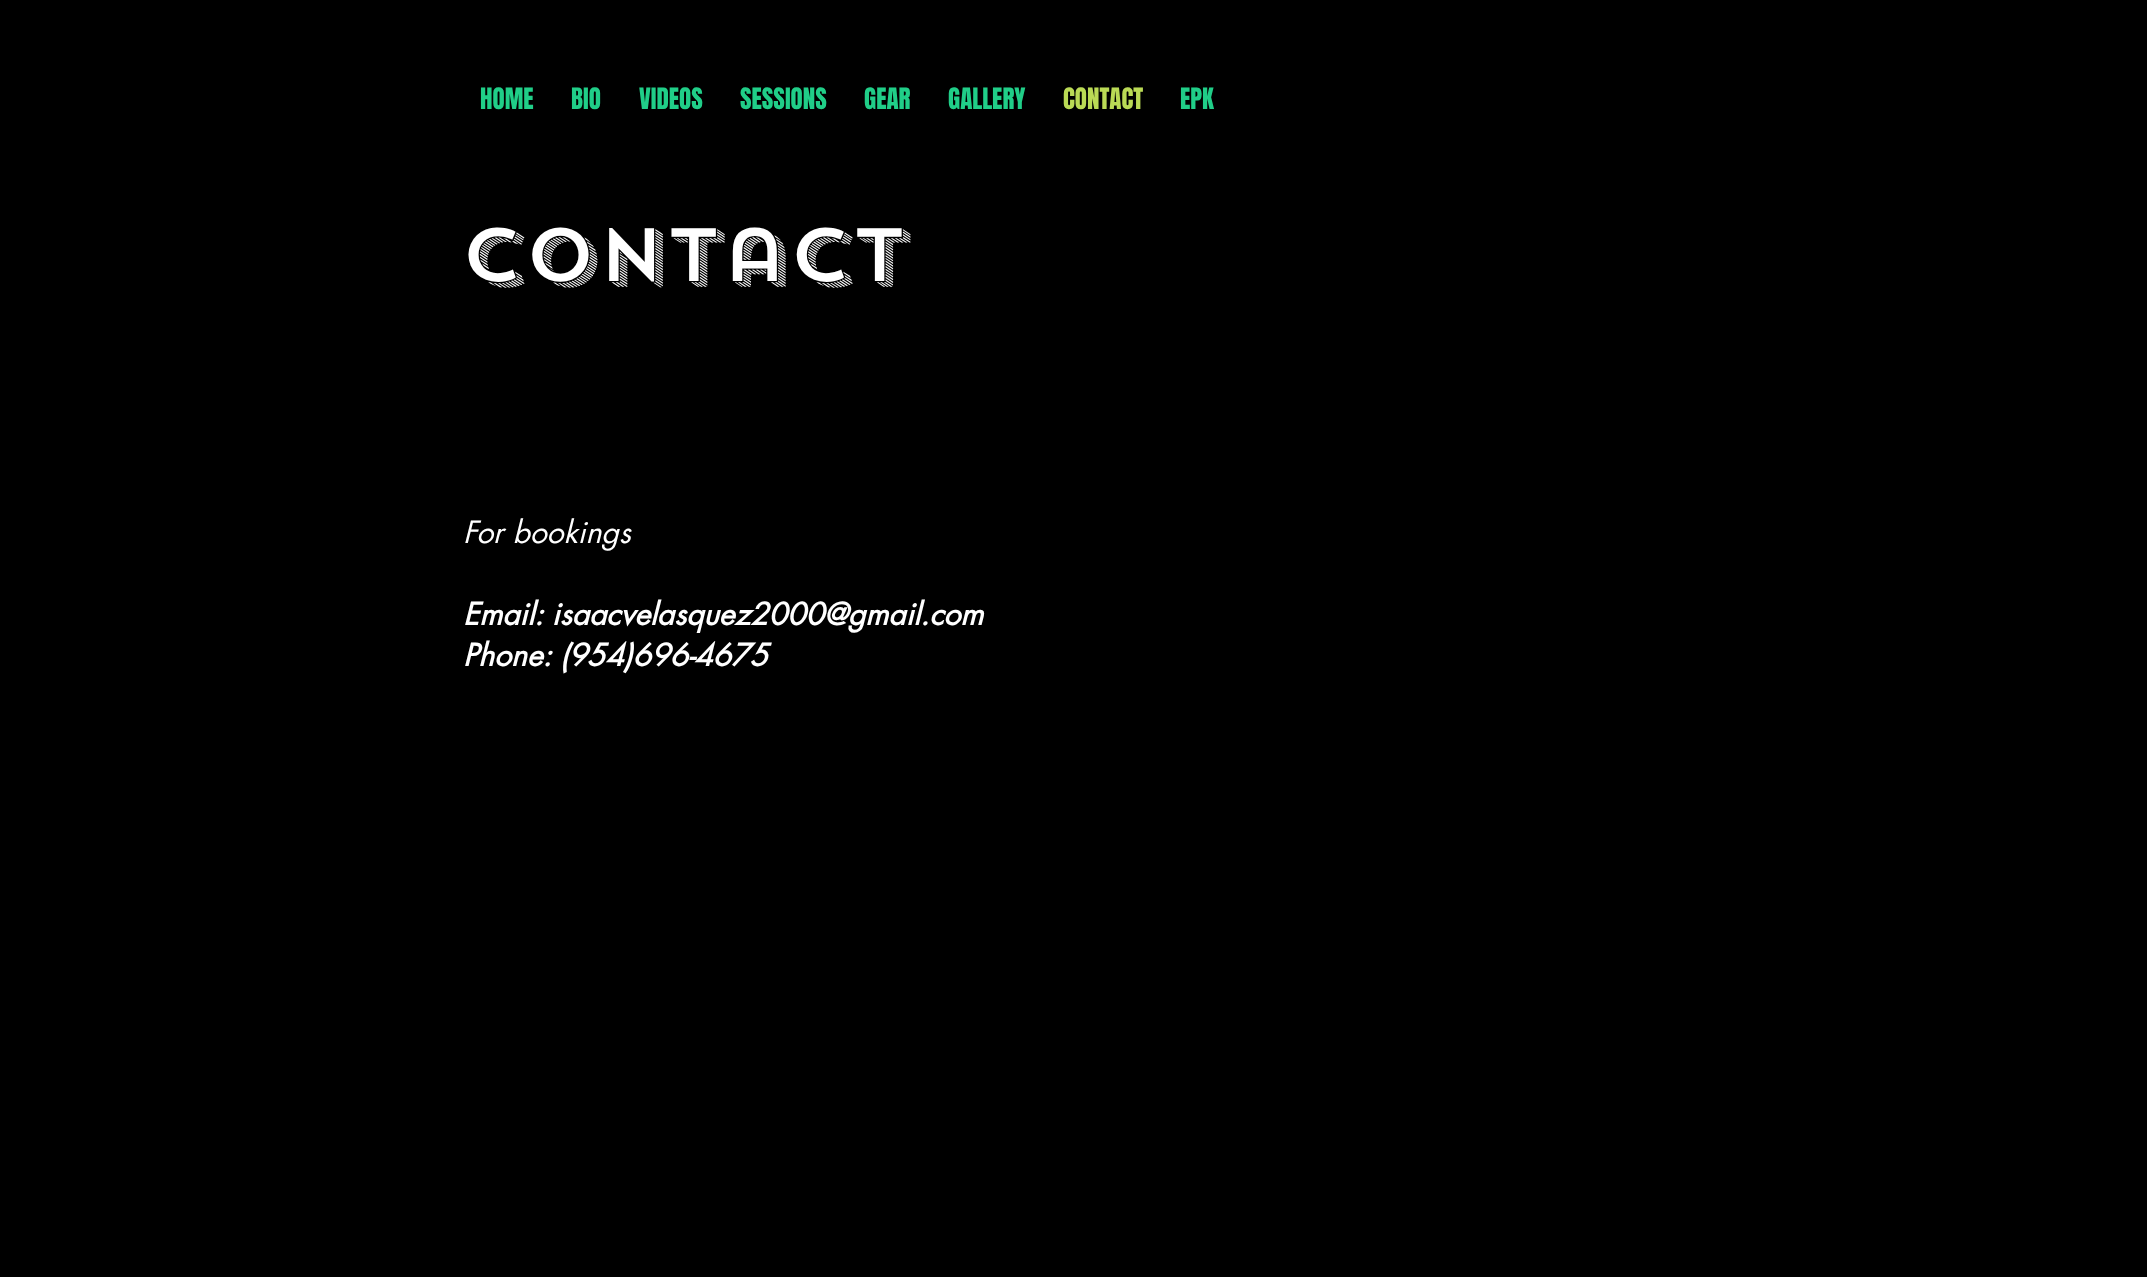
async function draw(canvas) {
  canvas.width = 2147
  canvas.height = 1277
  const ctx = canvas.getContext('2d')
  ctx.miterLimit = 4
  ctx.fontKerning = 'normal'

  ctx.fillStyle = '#000'
  ctx.fillRect(0, 0, 2147, 1277)
  ctx.font = '25px Anton'
  ctx.fillStyle = '#20ce88'
  ctx.fillText('HOME', 480, 109)
  ctx.fillText('BIO', 571, 109)
  ctx.fillText('VIDEOS', 639, 109)
  ctx.fillText('SESSIONS', 740, 109)
  ctx.fillText('GEAR', 864, 109)
  ctx.fillText('GALLERY', 948, 109)
  ctx.fillStyle = '#bada55'
  ctx.fillText('CONTACT', 1063, 109)
  ctx.fillStyle = '#20ce88'
  ctx.fillText('EPK', 1180, 109)
  ctx.letterSpacing = '2.25px'
  ctx.font = '500 75px "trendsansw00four"'
  ctx.fillStyle = '#fff'
  ctx.fillText('Contact', 461, 281)
  ctx.letterSpacing = '0px'
  ctx.font = 'italic 30px futura'
  ctx.fillText('For bookings', 463, 543)
  ctx.font = 'italic bold 30px futura'
  ctx.fillText('Email: isaacvelasquez2000@gmail.com', 463, 625)
  ctx.fillText('Phone: (954)696-4675', 463, 666)
}

draw(document.querySelector('canvas'))
